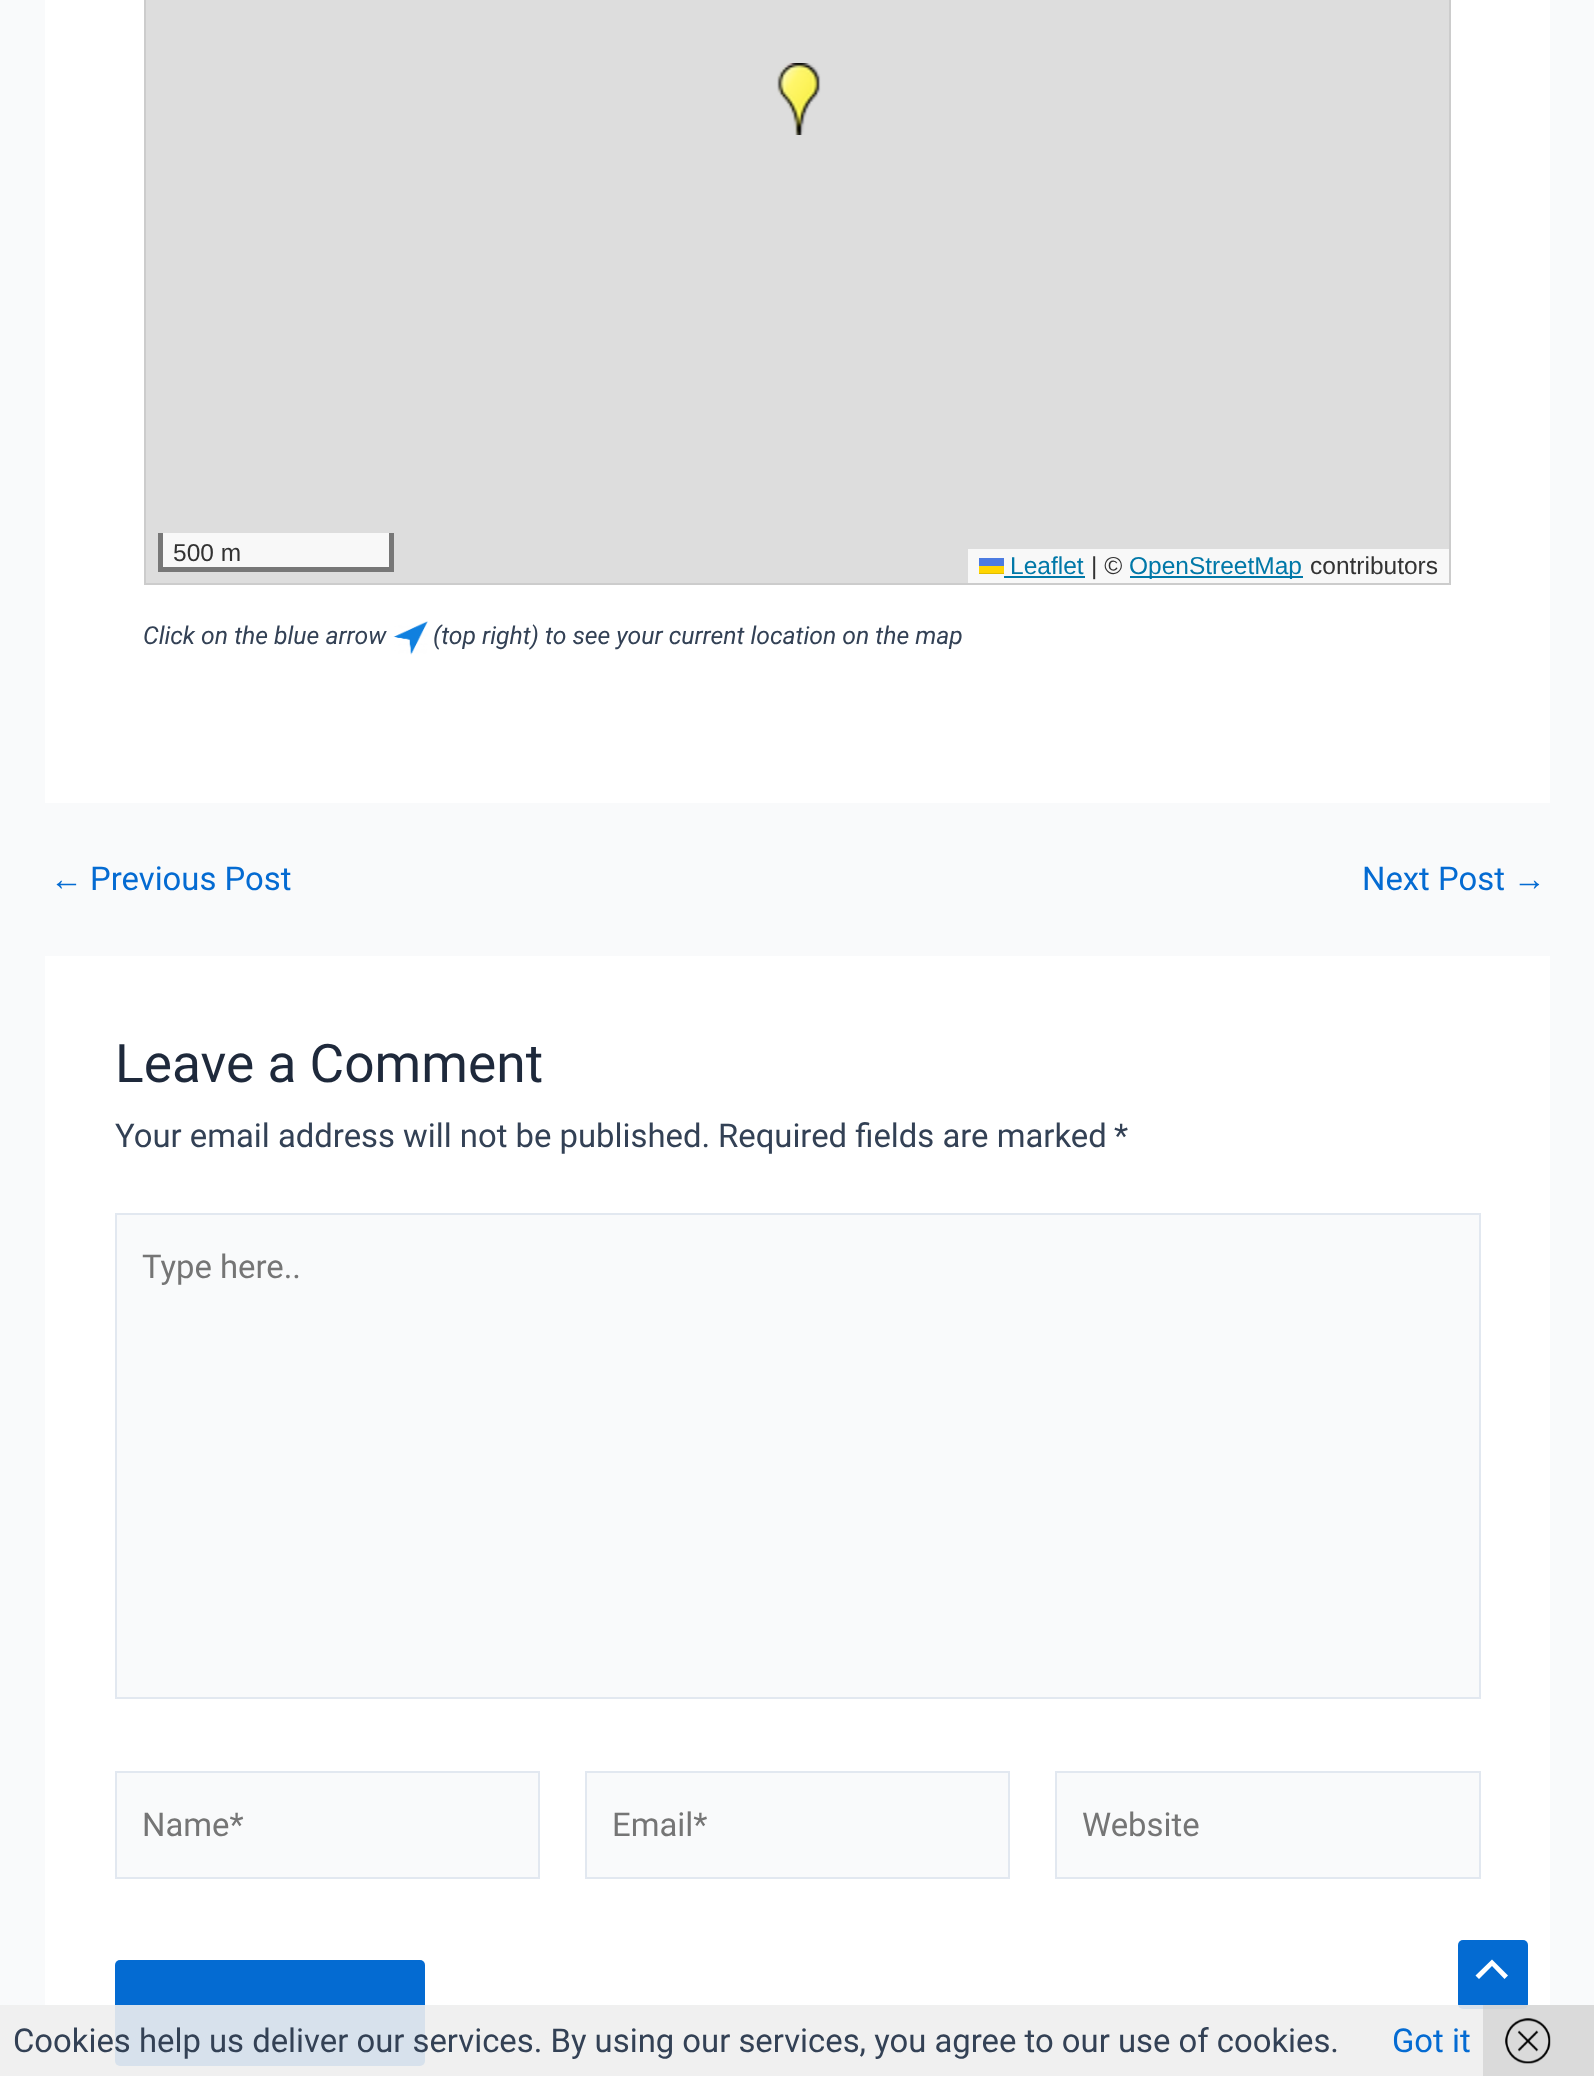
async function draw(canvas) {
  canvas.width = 1594
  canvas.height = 2076
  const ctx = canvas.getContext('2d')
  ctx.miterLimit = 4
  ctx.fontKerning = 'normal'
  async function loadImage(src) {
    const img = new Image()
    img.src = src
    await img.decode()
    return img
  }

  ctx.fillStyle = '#f9fafb'
  ctx.fillRect(0, 0, 1594, 2076)
  ctx.fillStyle = '#fff'
  ctx.fillRect(45, 0, 1505, 803)
  ctx.fillStyle = '#ddd'
  ctx.beginPath()
  ctx.rect(145, -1, 1305, 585)
  ctx.fill()
  ctx.strokeStyle = '#ccc'
  ctx.lineWidth = 2
  ctx.stroke()
  ctx.drawImage(await loadImage('image0.png'), 777, 63, 44, 72)
  ctx.fillStyle = '#f8f8f8'
  ctx.fillRect(163, 533, 226, 34)
  ctx.fillStyle = '#777'
  ctx.fillRect(389, 533, 5, 39)
  ctx.fillRect(158, 567, 236, 5)
  ctx.fillRect(158, 533, 5, 39)
  ctx.font = '24.5px Liberation Sans'
  ctx.fillStyle = '#333'
  ctx.fillText('500 m', 173, 561)
  ctx.fillStyle = '#f8f8f8'
  ctx.fillRect(968, 549, 481, 34)
  ctx.fillStyle = '#0078a8'
  ctx.fillText('Leaflet', 1010, 574)
  ctx.fillRect(1004, 576, 81, 2)
  ctx.fillStyle = '#4c7be1'
  ctx.fillRect(979, 558, 25, 8)
  ctx.fillStyle = '#ffd500'
  ctx.fillRect(979, 566, 25, 7)
  ctx.fillStyle = '#e0bc00'
  ctx.fillRect(979, 573, 25, 1)
  ctx.fillStyle = '#333'
  ctx.fillText('| ©', 1091, 574)
  ctx.fillStyle = '#0078a8'
  ctx.fillRect(1130, 576, 173, 2)
  ctx.fillText('OpenStreetMap', 1129, 574)
  ctx.fillStyle = '#333'
  ctx.fillText('contributors', 1310, 574)
  ctx.font = 'italic 24.75px Roboto'
  ctx.fillStyle = '#334155'
  ctx.fillText('Click on the blue arrow', 143, 644)
  ctx.drawImage(await loadImage('image1.png'), 393, 621, 35, 34)
  ctx.fillText('(top right) to see your current location on the map', 433, 644)
  ctx.font = '32.85px Liberation Sans'
  ctx.fillStyle = '#046bd2'
  ctx.fillText('←', 50, 890)
  ctx.font = '32.85px Roboto'
  ctx.fillText('Previous Post', 90, 890)
  ctx.fillText('Next Post', 1362, 890)
  ctx.font = '32.85px Liberation Sans'
  ctx.fillText('→', 1513, 890)
  ctx.fillStyle = '#fff'
  ctx.fillRect(45, 956, 1505, 1120)
  ctx.font = '53.25px Roboto'
  ctx.fillStyle = '#1e293b'
  ctx.fillText('Leave a Comment', 115, 1082)
  ctx.font = '32.85px Roboto'
  ctx.fillStyle = '#334155'
  ctx.fillText('Your email address will not be published.', 115, 1147)
  ctx.fillText('Required fields are marked', 718, 1147)
  ctx.fillText('*', 1114, 1147)
  ctx.fillStyle = '#f9fafb'
  ctx.beginPath()
  ctx.rect(116, 1214, 1364, 484)
  ctx.fill()
  ctx.strokeStyle = '#e2e8f0'
  ctx.stroke()
  ctx.fillStyle = '#757575'
  ctx.fillText('Type here..', 142, 1278)
  ctx.fillStyle = '#f9fafb'
  ctx.beginPath()
  ctx.rect(116, 1772, 423, 106)
  ctx.fill()
  ctx.stroke()
  ctx.fillStyle = '#757575'
  ctx.fillText('Name*', 142, 1836)
  ctx.fillStyle = '#f9fafb'
  ctx.beginPath()
  ctx.rect(586, 1772, 423, 106)
  ctx.fill()
  ctx.stroke()
  ctx.fillStyle = '#757575'
  ctx.fillText('Email*', 612, 1836)
  ctx.fillStyle = '#f9fafb'
  ctx.beginPath()
  ctx.rect(1056, 1772, 424, 106)
  ctx.fill()
  ctx.stroke()
  ctx.fillStyle = '#757575'
  ctx.fillText('Website', 1082, 1836)
  ctx.fillStyle = '#046bd2'
  ctx.beginPath()
  ctx.roundRect(115, 1960, 310, 106, 5)
  ctx.fill()
  ctx.beginPath()
  ctx.roundRect(1458, 1940, 70, 69, 5)
  ctx.fill()
  ctx.fillStyle = '#fff'
  ctx.beginPath()
  ctx.moveTo(1508, 1975.5)
  ctx.lineTo(1492, 1959.5)
  ctx.lineTo(1475.5, 1975.5)
  ctx.lineTo(1479, 1979)
  ctx.lineTo(1492, 1966)
  ctx.lineTo(1504.5, 1979)
  ctx.closePath()
  ctx.fill()
  ctx.fillStyle = '#eeeeeee6'
  ctx.fillRect(0, 2005, 1594, 71)
  ctx.fillStyle = '#334155'
  ctx.fillText('Cookies help us deliver our services. By using our services, you agree to our use of cookies.', 13, 2052)
  ctx.fillStyle = '#046bd2'
  ctx.fillText('Got it', 1392, 2052)
  ctx.fillStyle = '#cccccc99'
  ctx.fillRect(1483, 2005, 111, 71)
  ctx.drawImage(await loadImage('image2.png'), 1505, 2018, 46, 46)
}

draw(document.querySelector('canvas'))
